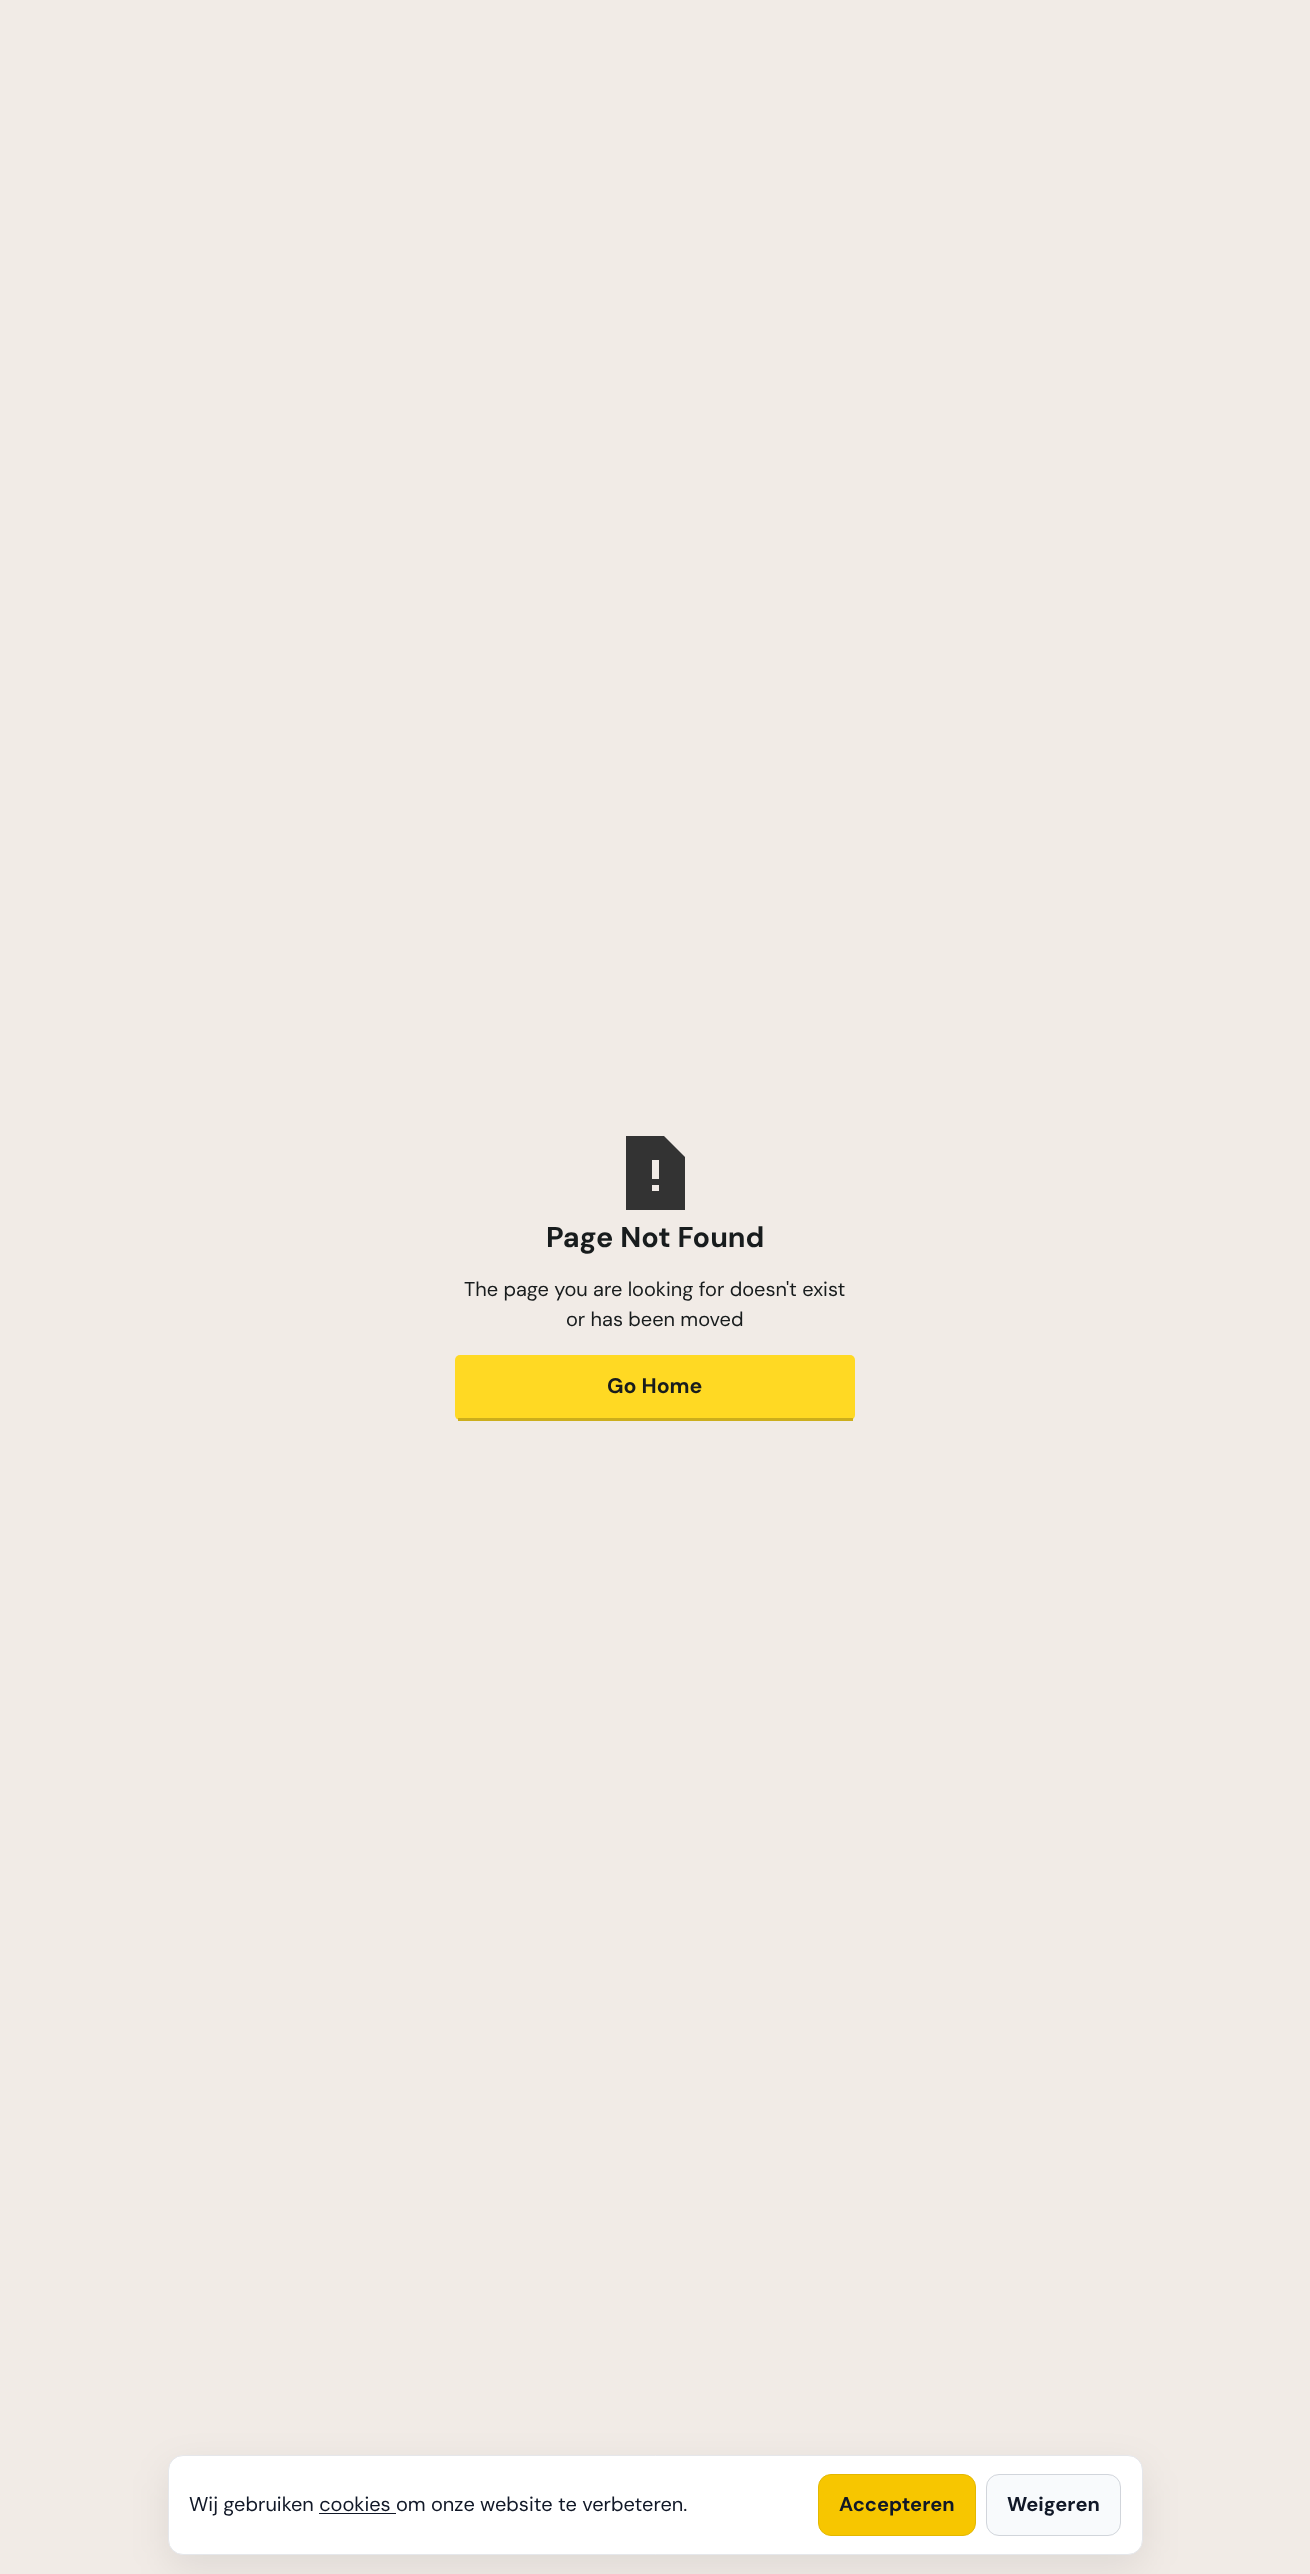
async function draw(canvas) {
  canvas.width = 1310
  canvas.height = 2574
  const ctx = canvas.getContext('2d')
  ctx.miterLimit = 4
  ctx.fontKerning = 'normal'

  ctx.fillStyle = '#f1ebe6'
  ctx.fillRect(0, 0, 1310, 2574)
  ctx.fillStyle = '#333'
  ctx.beginPath()
  ctx.moveTo(626, 1136)
  ctx.lineTo(664, 1136)
  ctx.lineTo(685, 1157)
  ctx.lineTo(685, 1210)
  ctx.lineTo(626, 1210)
  ctx.closePath()
  ctx.moveTo(652, 1160)
  ctx.lineTo(659, 1160)
  ctx.lineTo(659, 1179)
  ctx.lineTo(652, 1179)
  ctx.closePath()
  ctx.moveTo(652, 1185)
  ctx.lineTo(659, 1185)
  ctx.lineTo(659, 1191)
  ctx.lineTo(652, 1191)
  ctx.closePath()
  ctx.fill('evenodd')
  ctx.font = 'bold 28.75px DM Sans'
  ctx.fillStyle = '#181c1d'
  ctx.fillText('Page Not Found', 546, 1247)
  ctx.font = '20px DM Sans'
  ctx.fillText('The page you are looking for doesn\'t exist', 464, 1296)
  ctx.fillText('or has been moved', 566, 1326)
  ctx.fillStyle = '#ffd923'
  ctx.beginPath()
  ctx.roundRect(455, 1355, 400, 65, 5)
  ctx.fill()
  ctx.fillStyle = '#ccae1c'
  ctx.fillRect(458, 1418, 395, 3)
  ctx.font = 'bold 21.25px DM Sans'
  ctx.fillStyle = '#181c1d'
  ctx.fillText('Go Home', 607, 1393)
  ctx.fillStyle = '#00000014'
  ctx.filter = 'blur(19px)'
  ctx.beginPath()
  ctx.roundRect(168, 2468, 975, 100, 15)
  ctx.fill()
  ctx.filter = 'none'
  ctx.fillStyle = '#fff'
  ctx.beginPath()
  ctx.roundRect(168.5, 2455.5, 974, 99, 14.5)
  ctx.fill()
  ctx.strokeStyle = '#e5e7eb'
  ctx.stroke()
  ctx.font = '20px DM Sans'
  ctx.fillStyle = '#111827'
  ctx.fillText('Wij gebruiken cookies om onze website te verbeteren.', 189, 2511)
  ctx.fillRect(319, 2513, 77, 1)
  ctx.fillStyle = '#f7c600'
  ctx.beginPath()
  ctx.roundRect(818.5, 2474.5, 157, 61, 12.5)
  ctx.fill()
  ctx.strokeStyle = '#e3b800'
  ctx.stroke()
  ctx.font = 'bold 20px DM Sans'
  ctx.fillStyle = '#111827'
  ctx.fillText('Accepteren', 839, 2511)
  ctx.fillStyle = '#f8fafc'
  ctx.beginPath()
  ctx.roundRect(986.5, 2474.5, 134, 61, 12.5)
  ctx.fill()
  ctx.strokeStyle = '#d1d5db'
  ctx.stroke()
  ctx.fillStyle = '#111827'
  ctx.fillText('Weigeren', 1007, 2511)
}

draw(document.querySelector('canvas'))
